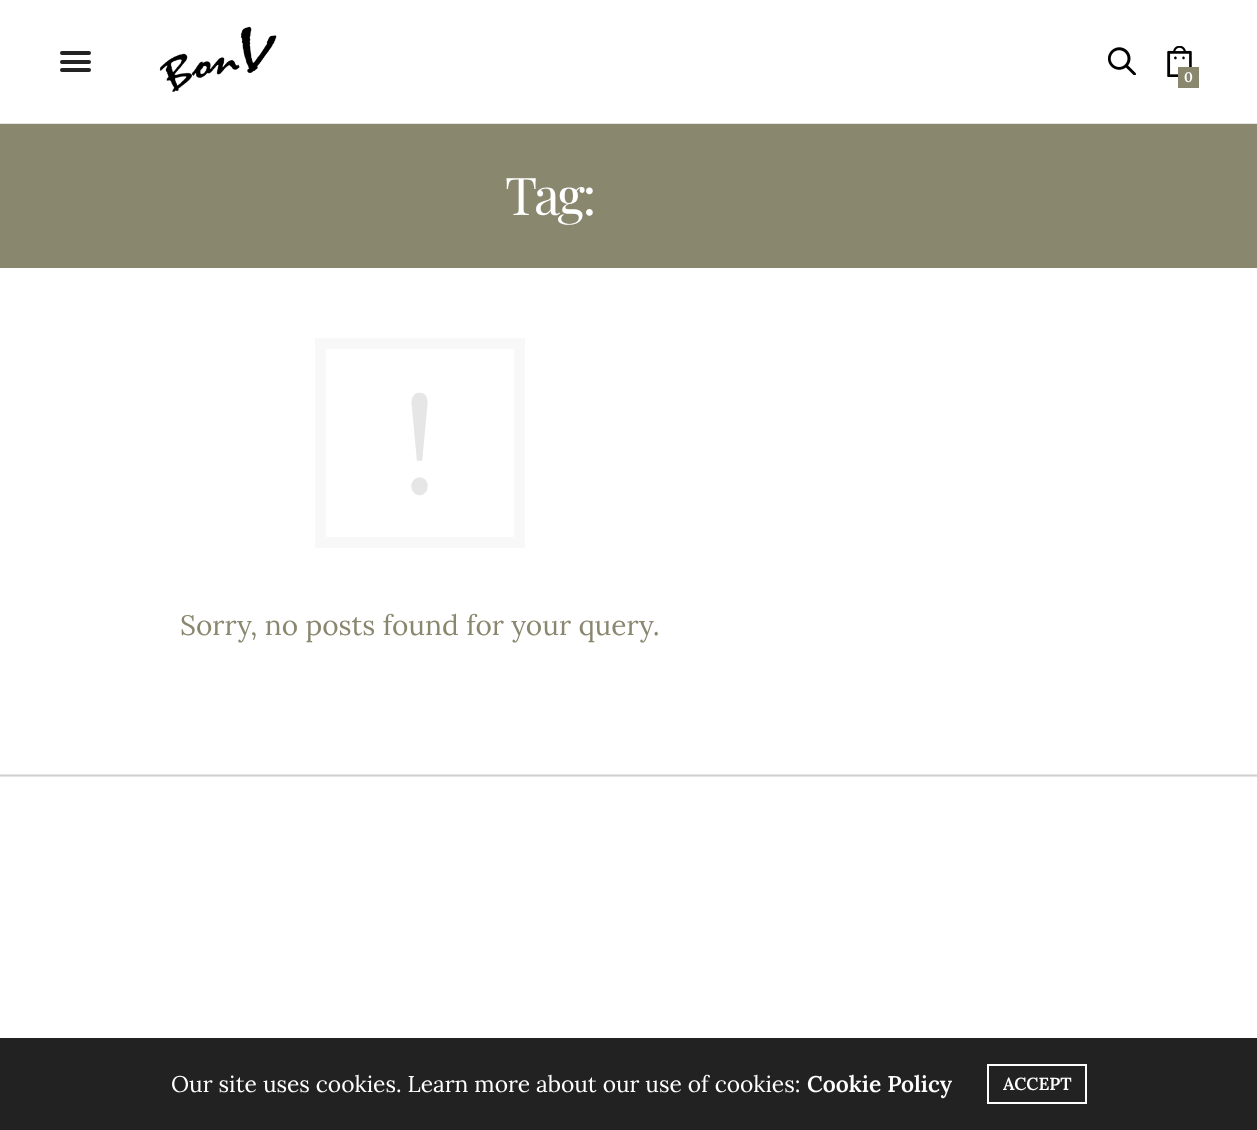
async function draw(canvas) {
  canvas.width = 1257
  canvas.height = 1130
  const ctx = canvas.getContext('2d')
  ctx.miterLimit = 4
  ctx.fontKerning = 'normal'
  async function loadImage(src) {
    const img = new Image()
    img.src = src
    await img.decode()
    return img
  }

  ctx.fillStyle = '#fff'
  ctx.fillRect(0, 0, 1257, 1130)
  ctx.fillStyle = '#e6e6e6'
  ctx.fillRect(0, 776, 1257, 1)
  ctx.fillRect(0, 123, 1257, 1)
  ctx.fillStyle = '#222'
  ctx.beginPath()
  ctx.roundRect(60, 51, 31, 4, 2)
  ctx.fill()
  ctx.beginPath()
  ctx.roundRect(60, 60, 31, 4, 2)
  ctx.fill()
  ctx.beginPath()
  ctx.roundRect(60, 68, 31, 4, 2)
  ctx.fill()
  ctx.drawImage(await loadImage('image0.png'), 159, 26, 118, 66)
  ctx.drawImage(await loadImage('image1.png'), 1108, 47, 28, 28)
  ctx.drawImage(await loadImage('image2.png'), 1167, 46, 25, 31)
  ctx.fillStyle = '#8a876f'
  ctx.fillRect(1178, 67, 21, 21)
  ctx.font = '600 14px Lora'
  ctx.fillStyle = '#fff'
  ctx.fillText('0', 1184, 82)
  ctx.fillStyle = '#8a876f'
  ctx.fillRect(0, 124, 1257, 144)
  ctx.letterSpacing = '-2.5px'
  ctx.font = '52px Playfair Display'
  ctx.fillStyle = '#fff'
  ctx.fillText('Tag:', 505, 215)
  ctx.strokeStyle = '#f8f8f8'
  ctx.lineWidth = 11
  ctx.strokeRect(320.5, 343.5, 199, 199)
  ctx.letterSpacing = '0px'
  ctx.font = '140px Lora'
  ctx.fillStyle = '#e6e6e6'
  ctx.fillText('!', 401, 493)
  ctx.font = '28px Lora'
  ctx.fillStyle = '#8a876f'
  ctx.fillText('Sorry, no posts found for your query.', 180, 635)
  ctx.fillStyle = '#e6e6e6'
  ctx.fillRect(0, 774, 1257, 1)
  ctx.fillStyle = '#cfcfcf'
  ctx.fillRect(0, 775, 1257, 1)
  ctx.fillStyle = '#222'
  ctx.fillRect(0, 1038, 1257, 92)
  ctx.font = '22.75px Lora'
  ctx.fillStyle = '#fff'
  ctx.fillText('Our site uses cookies. Learn more about our use of cookies:', 171, 1092)
  ctx.font = '600 22.75px Lora'
  ctx.fillText('Cookie Policy', 807, 1092)
  ctx.strokeStyle = '#fff'
  ctx.lineWidth = 2
  ctx.strokeRect(988, 1065, 98, 38)
  ctx.font = '600 17.5px Lora'
  ctx.fillText('ACCEPT', 1003, 1090)
}

draw(document.querySelector('canvas'))
